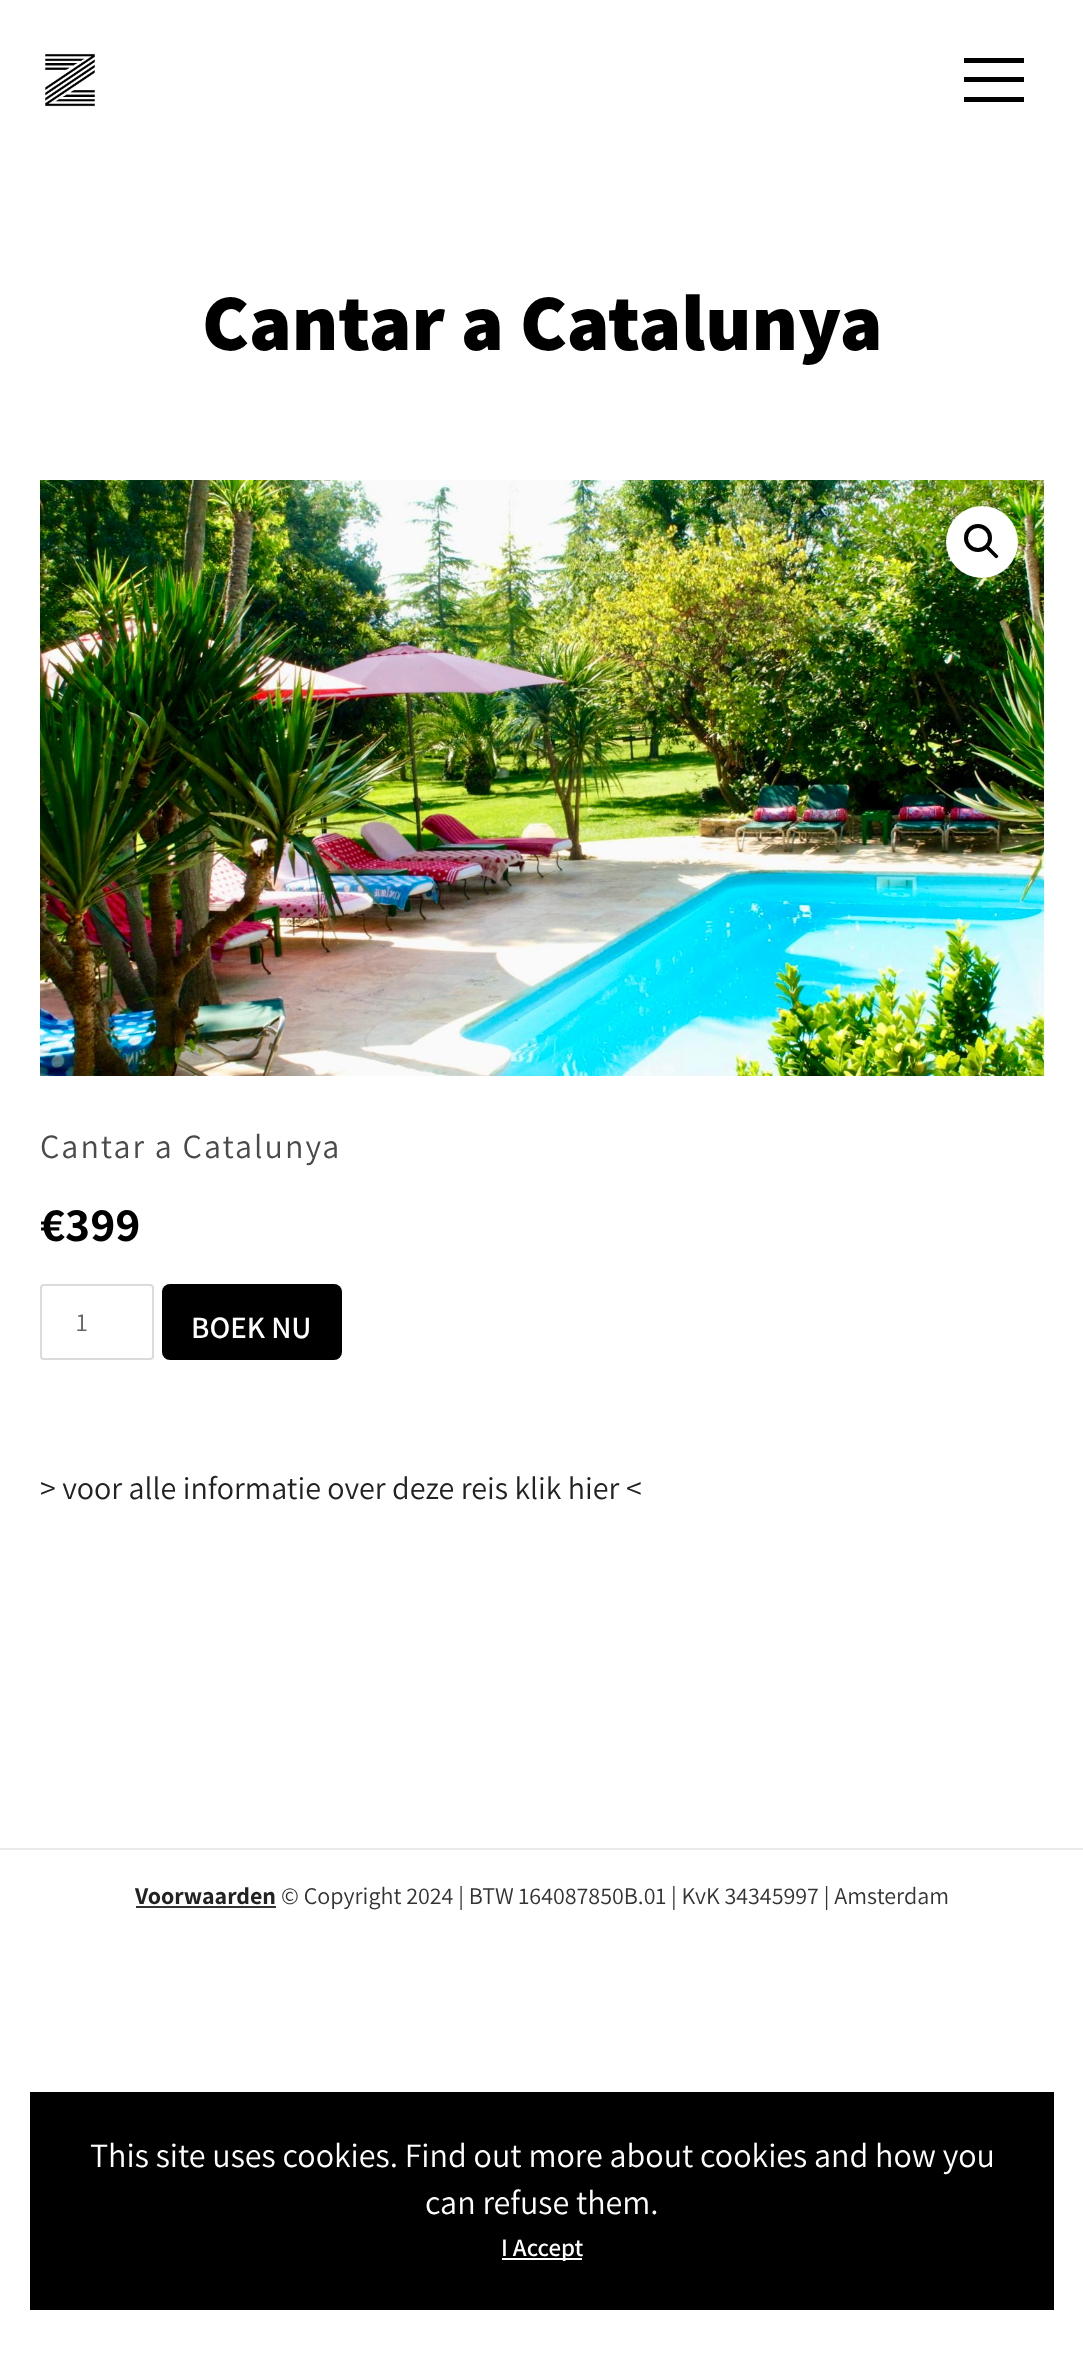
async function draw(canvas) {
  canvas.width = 1083
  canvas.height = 2370
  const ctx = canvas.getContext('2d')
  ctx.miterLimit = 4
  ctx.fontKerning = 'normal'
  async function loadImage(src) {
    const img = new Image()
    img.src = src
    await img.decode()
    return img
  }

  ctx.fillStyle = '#fff'
  ctx.fillRect(0, 0, 1083, 2370)
  ctx.drawImage(await loadImage('image0.png'), 45, 53, 50, 54)
  ctx.fillStyle = '#000'
  ctx.fillRect(964, 58, 60, 5)
  ctx.fillRect(964, 77, 60, 5)
  ctx.fillRect(964, 97, 60, 5)
  ctx.font = '800 80px Assistant'
  ctx.fillText('Cantar a Catalunya', 202, 350)
  ctx.drawImage(await loadImage('image1.png'), 40, 480, 1004, 596)
  ctx.fillStyle = '#fff'
  ctx.beginPath()
  ctx.arc(982, 542, 36, 0, 2 * Math.PI)
  ctx.fill()
  ctx.beginPath()
  ctx.arc(978, 538, 12, 0, 2 * Math.PI)
  ctx.strokeStyle = '#000'
  ctx.lineWidth = 4
  ctx.stroke()
  ctx.fillStyle = '#000'
  ctx.beginPath()
  ctx.moveTo(986.5, 546.5)
  ctx.bezierCurveTo(987, 545.5, 988.5, 545.5, 989, 546.5)
  ctx.lineTo(997.5, 555)
  ctx.bezierCurveTo(998.5, 555.5, 998.5, 557, 997.5, 557.5)
  ctx.bezierCurveTo(997, 558.5, 995.5, 558.5, 995, 557.5)
  ctx.lineTo(986.5, 549)
  ctx.bezierCurveTo(985.5, 548.5, 985.5, 547, 986.5, 546.5)
  ctx.closePath()
  ctx.fill()
  ctx.letterSpacing = '2px'
  ctx.font = '34px Assistant'
  ctx.fillStyle = '#4a4a4a'
  ctx.fillText('Cantar a Catalunya', 40, 1158)
  ctx.letterSpacing = '0px'
  ctx.font = 'bold 48px Assistant'
  ctx.fillStyle = '#000'
  ctx.fillText('€399', 40, 1241)
  ctx.beginPath()
  ctx.roundRect(41, 1285, 112, 74, 3)
  ctx.strokeStyle = '#dbdbdb'
  ctx.lineWidth = 2
  ctx.stroke()
  ctx.font = '26px Assistant'
  ctx.fillStyle = '#666'
  ctx.fillText('1', 76, 1331)
  ctx.fillStyle = '#000'
  ctx.beginPath()
  ctx.roundRect(162, 1284, 180, 76, 8)
  ctx.fill()
  ctx.font = '600 31px Assistant'
  ctx.fillStyle = '#fff'
  ctx.fillText('BOEK NU', 191, 1338)
  ctx.font = '32px Assistant'
  ctx.fillStyle = '#222'
  ctx.fillText('> voor alle informatie over deze reis klik hier <', 40, 1499)
  ctx.fillStyle = '#eaeaea'
  ctx.fillRect(0, 1848, 1083, 2)
  ctx.font = 'bold 24px Assistant'
  ctx.fillStyle = '#222'
  ctx.fillText('Voorwaarden', 135, 1904)
  ctx.fillStyle = '#333'
  ctx.fillRect(136, 1906, 140, 2)
  ctx.font = '24px Assistant'
  ctx.fillText('© Copyright 2024 | BTW 164087850B.01 | KvK 34345997 | Amsterdam', 281, 1904)
  ctx.fillStyle = '#000'
  ctx.fillRect(30, 2092, 1024, 218)
  ctx.font = '34px Assistant'
  ctx.fillStyle = '#fff'
  ctx.fillText('This site uses cookies. Find out more about cookies and how you', 90, 2167)
  ctx.fillText('can refuse them.', 425, 2214)
  ctx.fillRect(502, 2258, 80, 2)
  ctx.font = '600 25px Assistant'
  ctx.fillText('I Accept', 501, 2256)
}

draw(document.querySelector('canvas'))
